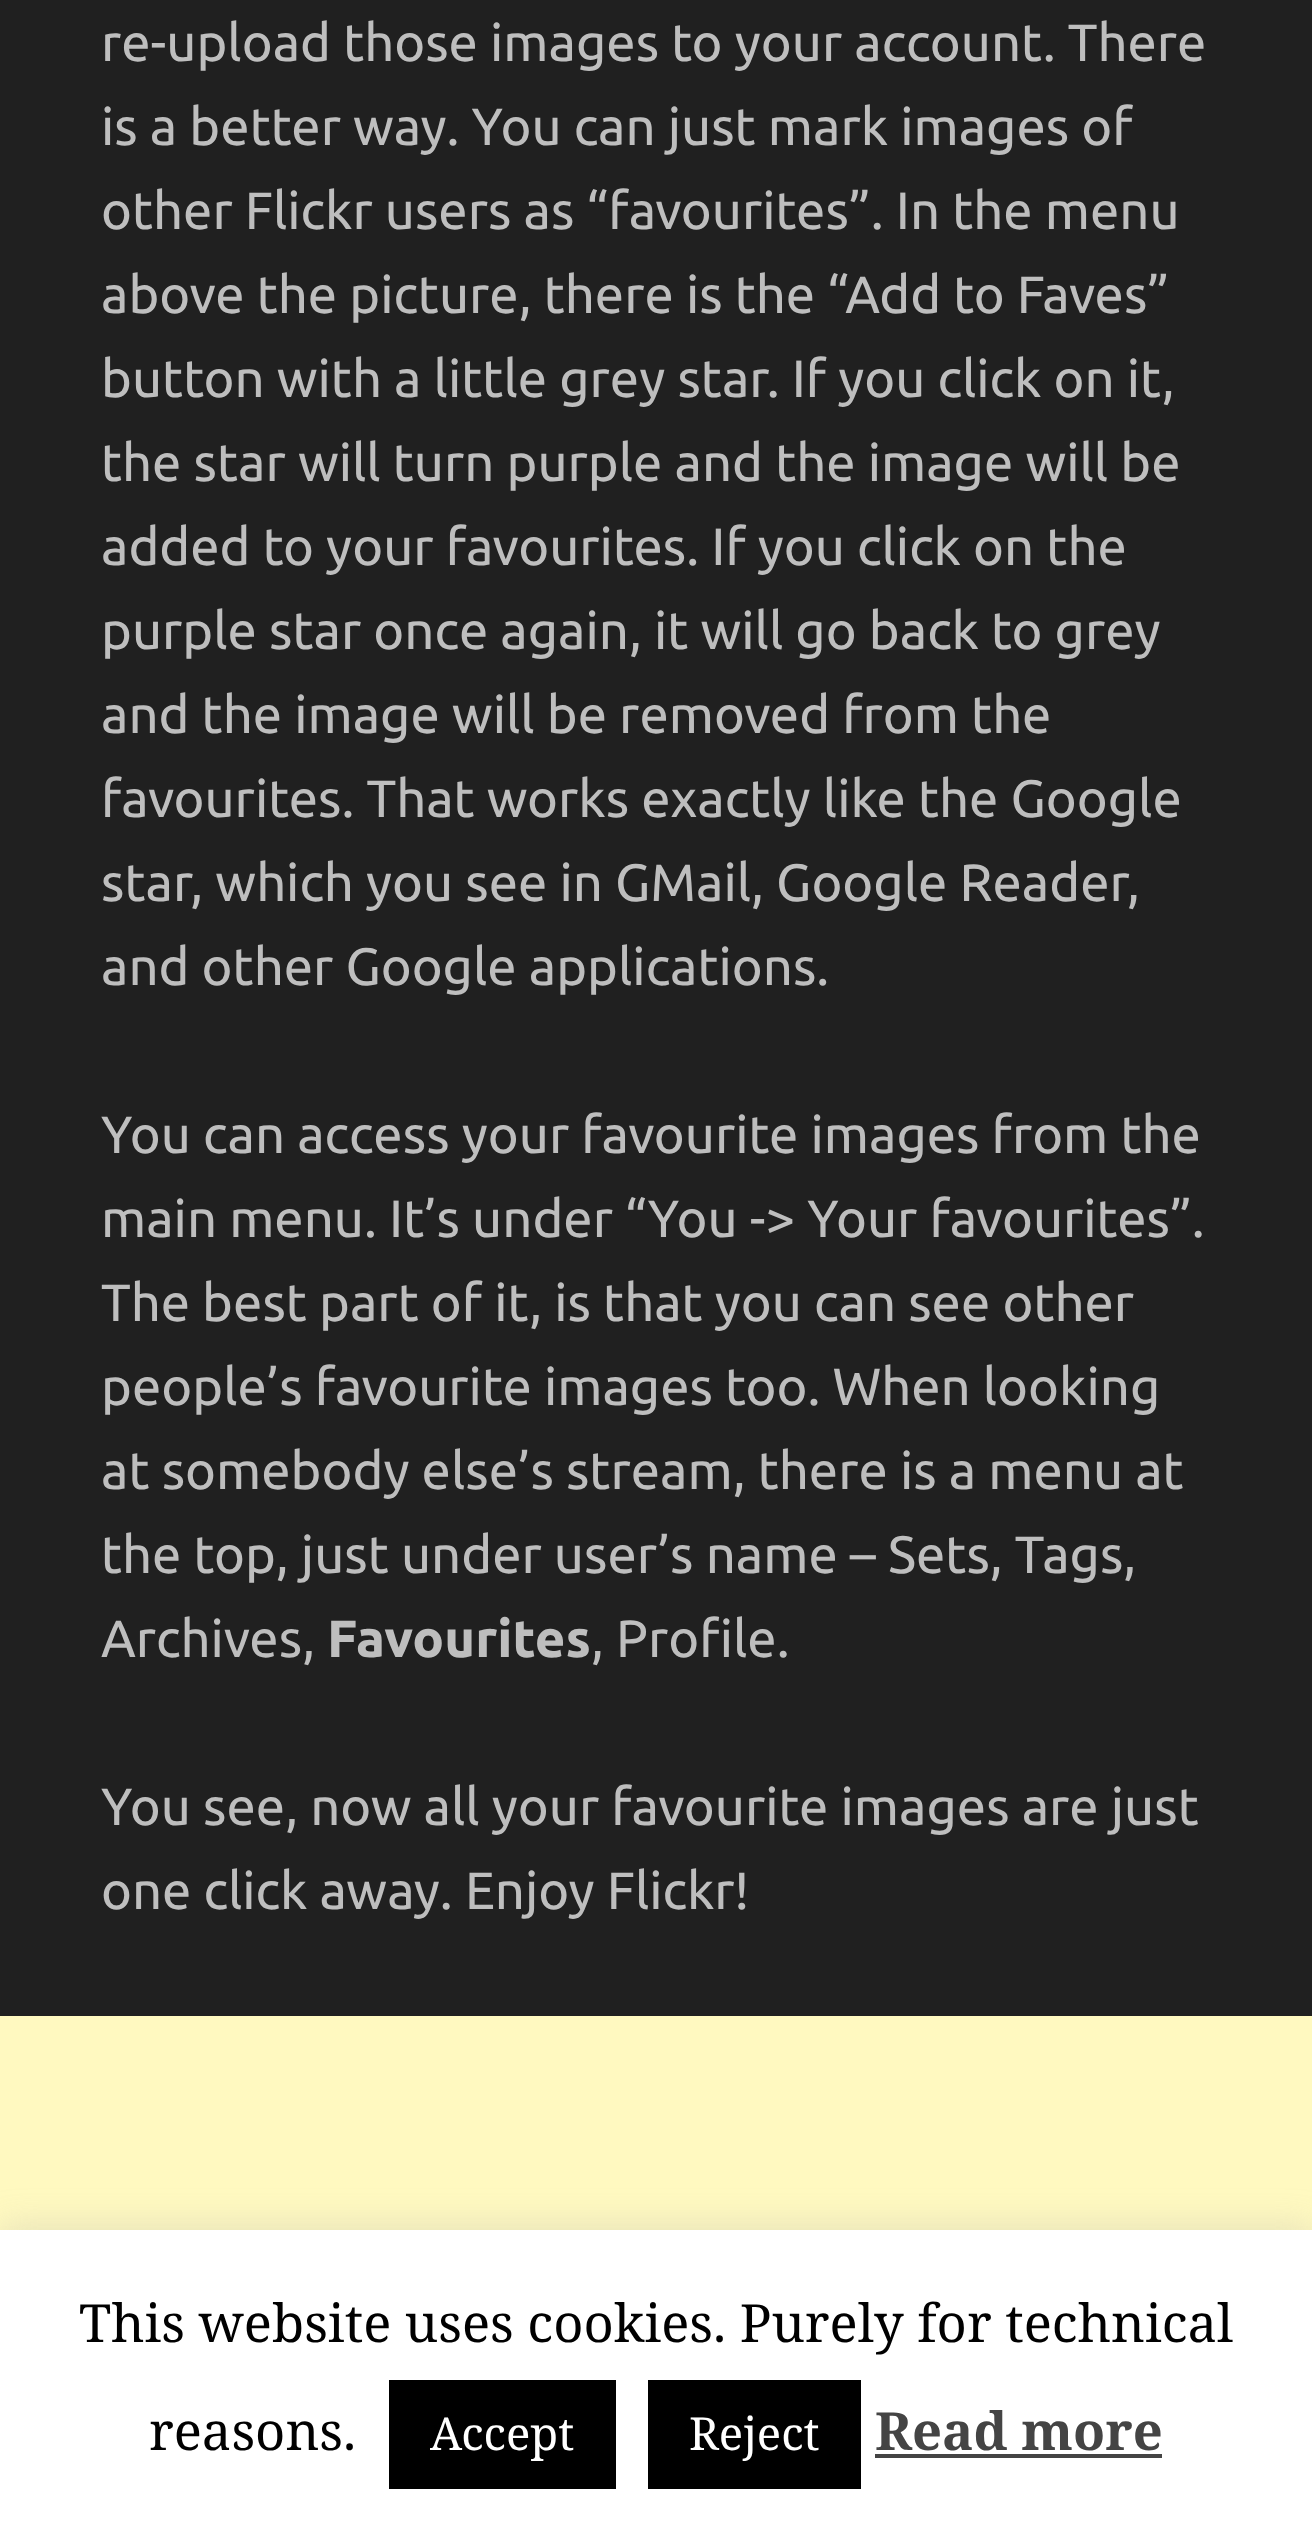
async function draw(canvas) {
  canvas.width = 1312
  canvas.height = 2528
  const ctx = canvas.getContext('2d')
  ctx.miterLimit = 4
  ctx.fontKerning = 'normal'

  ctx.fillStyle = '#202020'
  ctx.fillRect(0, 0, 1312, 2528)
  ctx.font = '52.5px Ubuntu'
  ctx.fillStyle = '#bebebe'
  ctx.fillText('re-upload those images to your account. There', 101, 61)
  ctx.fillText('is a better way. You can just mark images of', 101, 145)
  ctx.fillText('other Flickr users as “favourites”. In the menu', 101, 229)
  ctx.fillText('above the picture, there is the “Add to Faves”', 101, 313)
  ctx.fillText('button with a little grey star. If you click on it,', 101, 397)
  ctx.fillText('the star will turn purple and the image will be', 101, 481)
  ctx.fillText('added to your favourites. If you click on the', 101, 565)
  ctx.fillText('purple star once again, it will go back to grey', 101, 649)
  ctx.fillText('and the image will be removed from the', 101, 733)
  ctx.fillText('favourites. That works exactly like the Google', 101, 817)
  ctx.fillText('star, which you see in GMail, Google Reader,', 101, 901)
  ctx.fillText('and other Google applications.', 101, 985)
  ctx.fillText('You can access your favourite images from the', 101, 1153)
  ctx.fillText('main menu. It’s under “You -> Your favourites”.', 101, 1237)
  ctx.fillText('The best part of it, is that you can see other', 101, 1321)
  ctx.fillText('people’s favourite images too. When looking', 101, 1405)
  ctx.fillText('at somebody else’s stream, there is a menu at', 101, 1489)
  ctx.fillText('the top, just under user’s name – Sets, Tags,', 101, 1573)
  ctx.fillText('Archives,', 101, 1657)
  ctx.font = 'bold 52.5px Ubuntu'
  ctx.fillText('Favourites', 327, 1657)
  ctx.font = '52.5px Ubuntu'
  ctx.fillText(', Profile.', 591, 1657)
  ctx.fillText('You see, now all your favourite images are just', 101, 1825)
  ctx.fillText('one click away. Enjoy Flickr!', 101, 1909)
  ctx.fillStyle = '#fff9c0'
  ctx.fillRect(0, 2016, 1312, 214)
  ctx.fillStyle = '#acabab4d'
  ctx.filter = 'blur(17.5px)'
  ctx.beginPath()
  ctx.rect(0, 2226, 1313, 301)
  ctx.fill()
  ctx.filter = 'none'
  ctx.fillStyle = '#fff'
  ctx.fillRect(0, 2230, 1312, 298)
  ctx.font = '52.5px Noto Serif'
  ctx.fillStyle = '#000'
  ctx.fillText('This website uses cookies. Purely for technical', 79, 2342)
  ctx.fillText('reasons.', 149, 2450)
  ctx.fillRect(389, 2380, 227, 109)
  ctx.font = '45.5px Noto Serif'
  ctx.fillStyle = '#fff'
  ctx.fillText('Accept', 430, 2450)
  ctx.fillStyle = '#000'
  ctx.fillRect(648, 2380, 213, 109)
  ctx.fillStyle = '#fff'
  ctx.fillText('Reject', 689, 2450)
  ctx.font = 'bold 52.5px Noto Serif'
  ctx.fillStyle = '#444'
  ctx.fillText('Read more', 875, 2450)
  ctx.fillRect(875, 2454, 287, 4)
}

draw(document.querySelector('canvas'))
